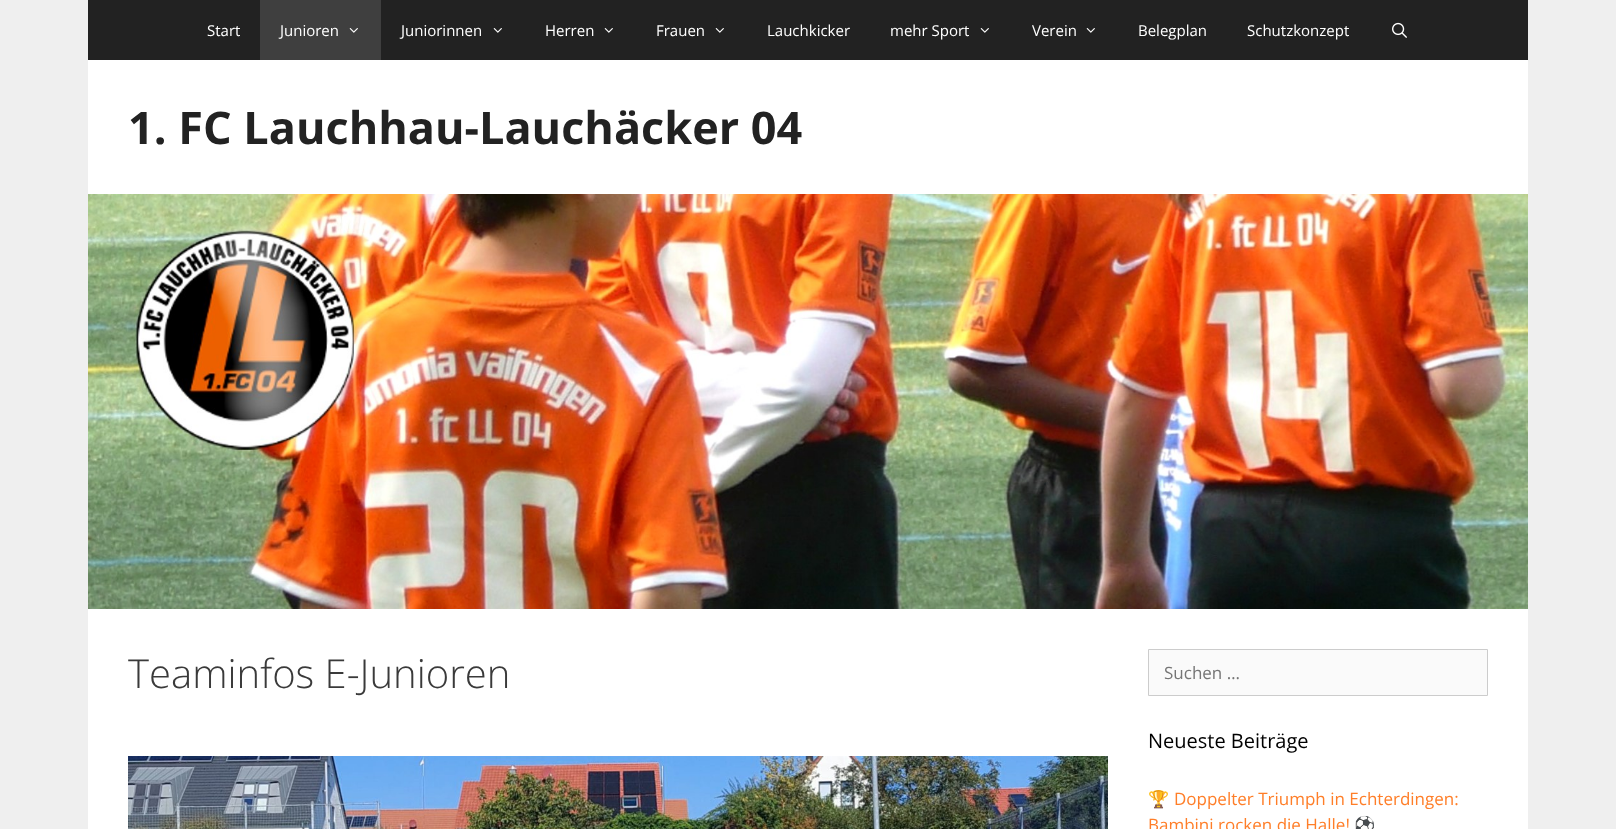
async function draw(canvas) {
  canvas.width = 1616
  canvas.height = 829
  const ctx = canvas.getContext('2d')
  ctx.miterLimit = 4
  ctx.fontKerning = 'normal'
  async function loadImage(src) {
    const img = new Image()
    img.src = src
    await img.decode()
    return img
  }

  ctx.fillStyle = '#efefef'
  ctx.fillRect(0, 0, 1616, 829)
  ctx.fillStyle = '#222'
  ctx.fillRect(88, 0, 1440, 60)
  ctx.font = '15px Open Sans'
  ctx.fillStyle = '#fff'
  ctx.fillText('Start', 207, 36)
  ctx.fillStyle = '#3f3f3f'
  ctx.fillRect(260, 0, 121, 60)
  ctx.fillStyle = '#fff'
  ctx.fillText('Junioren', 280, 36)
  ctx.drawImage(await loadImage('image0.png'), 349, 28, 9, 5)
  ctx.fillText('Juniorinnen', 401, 36)
  ctx.drawImage(await loadImage('image1.png'), 493, 28, 9, 5)
  ctx.fillText('Herren', 545, 36)
  ctx.drawImage(await loadImage('image1.png'), 604, 28, 9, 5)
  ctx.fillText('Frauen', 656, 36)
  ctx.drawImage(await loadImage('image1.png'), 715, 28, 9, 5)
  ctx.fillText('Lauchkicker', 767, 36)
  ctx.fillText('mehr Sport', 890, 36)
  ctx.drawImage(await loadImage('image1.png'), 980, 28, 9, 5)
  ctx.fillText('Verein', 1032, 36)
  ctx.drawImage(await loadImage('image1.png'), 1086, 28, 9, 5)
  ctx.fillText('Belegplan', 1138, 36)
  ctx.fillText('Schutzkonzept', 1247, 36)
  ctx.drawImage(await loadImage('image2.png'), 1392, 22, 15, 16)
  ctx.fillRect(88, 60, 1440, 134)
  ctx.font = 'bold 45px Open Sans'
  ctx.fillStyle = '#222'
  ctx.fillText('1. FC Lauchhau-Lauchäcker 04', 128, 144)
  ctx.drawImage(await loadImage('image3.png'), 88, 194, 1440, 415)
  ctx.fillStyle = '#fff'
  ctx.fillRect(88, 609, 1440, 220)
  ctx.font = '300 40px Open Sans'
  ctx.fillStyle = '#3a3a3a'
  ctx.fillText('Teaminfos E-Junioren', 128, 688)
  ctx.drawImage(await loadImage('image4.png'), 128, 756, 980, 73)
  ctx.fillStyle = '#fafafa'
  ctx.beginPath()
  ctx.rect(1148.5, 649.5, 339, 46)
  ctx.fill()
  ctx.strokeStyle = '#ccc'
  ctx.stroke()
  ctx.font = '17px Open Sans'
  ctx.fillStyle = '#757575'
  ctx.fillText('Suchen …', 1164, 679)
  ctx.font = '20px Open Sans'
  ctx.fillStyle = '#000'
  ctx.fillText('Neueste Beiträge', 1148, 748)
  ctx.font = '17px Noto Color Emoji'
  ctx.fillStyle = '#ff7e28'
  ctx.fillText('🏆', 1148, 805)
  ctx.font = '17px Open Sans'
  ctx.fillText('Doppelter Triumph in Echterdingen:', 1174, 805)
  ctx.fillText('Bambini rocken die Halle!', 1148, 831)
  ctx.font = '17px Noto Color Emoji'
  ctx.fillText('⚽', 1354, 831)
}

draw(document.querySelector('canvas'))
